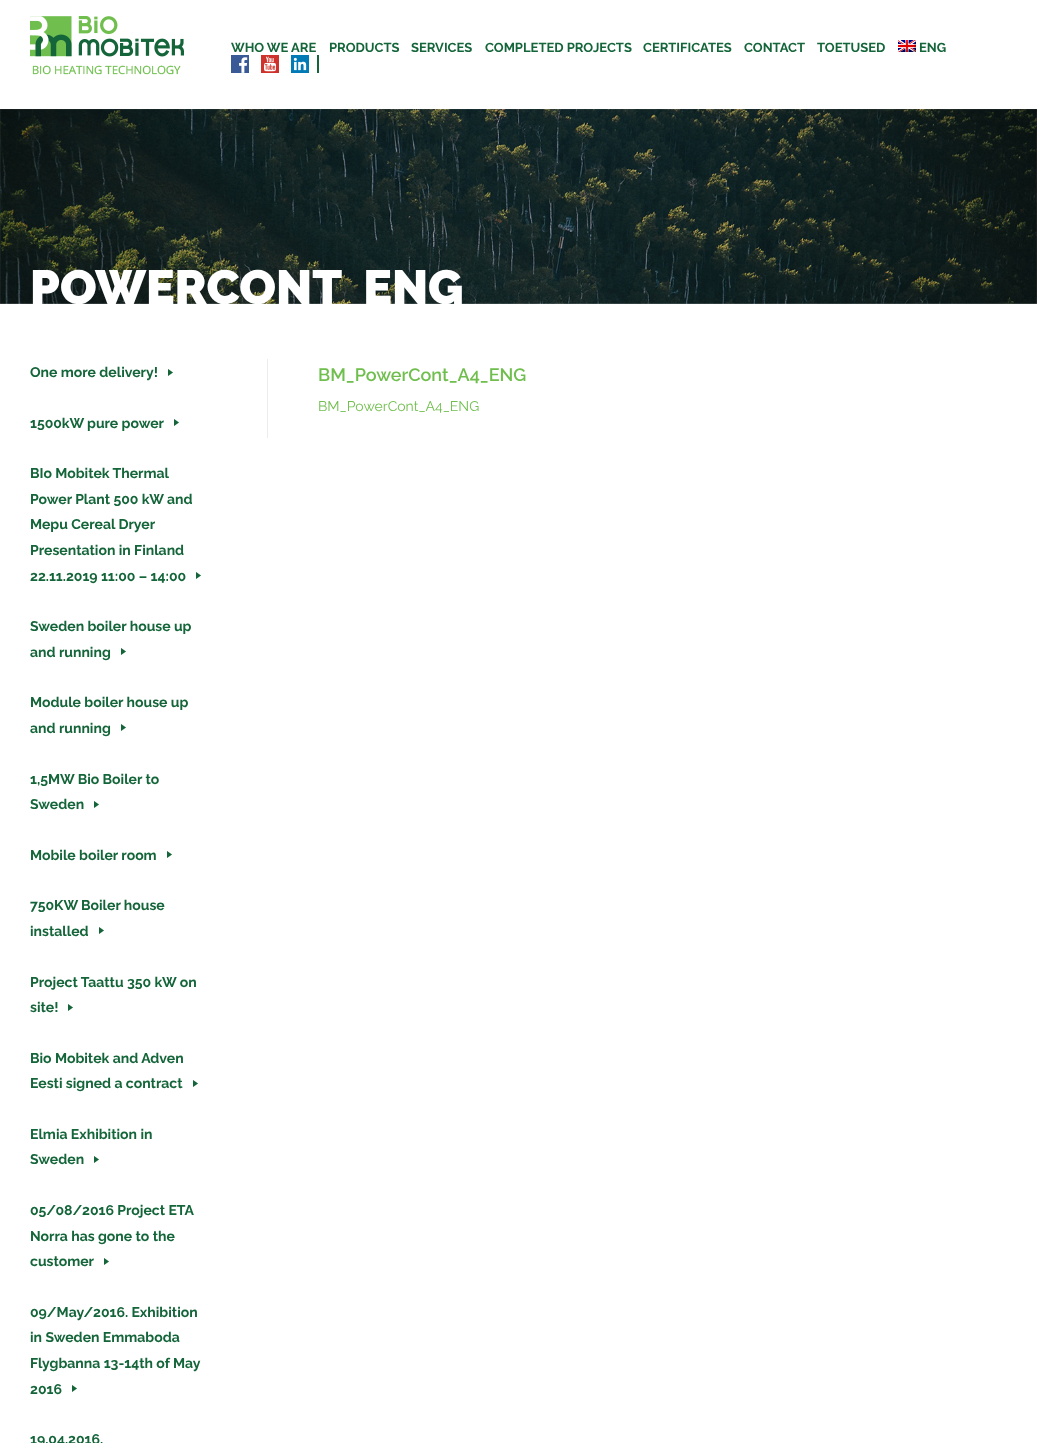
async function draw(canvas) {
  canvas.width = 1037
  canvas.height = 1443
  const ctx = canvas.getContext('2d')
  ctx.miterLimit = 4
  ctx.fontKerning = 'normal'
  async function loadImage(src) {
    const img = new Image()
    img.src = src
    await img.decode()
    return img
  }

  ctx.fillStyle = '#fff'
  ctx.fillRect(0, 0, 1037, 1443)
  ctx.drawImage(await loadImage('image0.png'), 30, 16, 154, 59)
  ctx.font = 'bold 13px Raleway'
  ctx.fillStyle = '#146539'
  ctx.fillText('WHO WE ARE', 231, 52)
  ctx.fillText('PRODUCTS', 329, 52)
  ctx.fillText('SERVICES', 411, 52)
  ctx.fillText('COMPLETED PROJECTS', 485, 52)
  ctx.fillText('CERTIFICATES', 643, 52)
  ctx.fillText('CONTACT', 744, 52)
  ctx.fillText('TOETUSED', 817, 52)
  ctx.drawImage(await loadImage('image1.png'), 898, 40, 18, 12)
  ctx.fillText('ENG', 919, 52)
  ctx.fillRect(317, 55, 2, 18)
  ctx.drawImage(await loadImage('image2.png'), 231, 55, 18, 18)
  ctx.drawImage(await loadImage('image3.png'), 261, 55, 18, 18)
  ctx.drawImage(await loadImage('image4.png'), 291, 55, 18, 18)
  ctx.drawImage(await loadImage('image5.png'), 0, 109, 1037, 195)
  ctx.font = '900 48px Raleway'
  ctx.fillStyle = '#fff'
  ctx.fillText('POWERCONT_ENG', 30, 304)
  ctx.font = 'bold 14px Raleway'
  ctx.fillStyle = '#146539'
  ctx.fillText('One more delivery!', 30, 377)
  ctx.drawImage(await loadImage('image6.png'), 168, 369, 5, 7)
  ctx.fillText('1500kW pure power', 30, 428)
  ctx.drawImage(await loadImage('image6.png'), 174, 419, 5, 7)
  ctx.fillText('BIo Mobitek Thermal', 30, 478)
  ctx.fillText('Power Plant 500 kW and', 30, 504)
  ctx.fillText('Mepu Cereal Dryer', 30, 529)
  ctx.fillText('Presentation in Finland', 30, 555)
  ctx.fillText('22.11.2019 11:00 – 14:00', 30, 581)
  ctx.drawImage(await loadImage('image6.png'), 196, 572, 5, 7)
  ctx.fillText('Sweden boiler house up', 30, 631)
  ctx.fillText('and running', 30, 657)
  ctx.drawImage(await loadImage('image6.png'), 121, 648, 5, 7)
  ctx.fillText('Module boiler house up', 30, 707)
  ctx.fillText('and running', 30, 733)
  ctx.drawImage(await loadImage('image6.png'), 121, 724, 5, 7)
  ctx.fillText('1,5MW Bio Boiler to', 30, 784)
  ctx.fillText('Sweden', 30, 809)
  ctx.drawImage(await loadImage('image6.png'), 94, 801, 5, 7)
  ctx.fillText('Mobile boiler room', 30, 860)
  ctx.drawImage(await loadImage('image6.png'), 167, 851, 5, 7)
  ctx.fillText('750KW Boiler house', 30, 910)
  ctx.fillText('installed', 30, 936)
  ctx.drawImage(await loadImage('image6.png'), 99, 927, 5, 7)
  ctx.fillText('Project Taattu 350 kW on', 30, 987)
  ctx.fillText('site!', 30, 1012)
  ctx.drawImage(await loadImage('image6.png'), 68, 1004, 5, 7)
  ctx.fillText('Bio Mobitek and Adven', 30, 1063)
  ctx.fillText('Eesti signed a contract', 30, 1088)
  ctx.drawImage(await loadImage('image6.png'), 193, 1080, 5, 7)
  ctx.fillText('Elmia Exhibition in', 30, 1139)
  ctx.fillText('Sweden', 30, 1164)
  ctx.drawImage(await loadImage('image6.png'), 94, 1156, 5, 7)
  ctx.fillText('05/08/2016 Project ETA', 30, 1215)
  ctx.fillText('Norra has gone to the', 30, 1241)
  ctx.fillText('customer', 30, 1266)
  ctx.drawImage(await loadImage('image6.png'), 104, 1258, 5, 7)
  ctx.fillText('09/May/2016. Exhibition', 30, 1317)
  ctx.fillText('in Sweden Emmaboda', 30, 1342)
  ctx.fillText('Flygbanna 13-14th of May', 30, 1368)
  ctx.fillText('2016', 30, 1394)
  ctx.drawImage(await loadImage('image6.png'), 72, 1385, 5, 7)
  ctx.fillText('19.04.2016.', 30, 1444)
  ctx.fillStyle = '#ececed'
  ctx.fillRect(267, 359, 1, 79)
  ctx.font = '600 18px Raleway'
  ctx.fillStyle = '#70bf4e'
  ctx.fillText('BM_PowerCont_A4_ENG', 318, 381)
  ctx.font = '14px Raleway'
  ctx.fillText('BM_PowerCont_A4_ENG', 318, 411)
}

draw(document.querySelector('canvas'))
